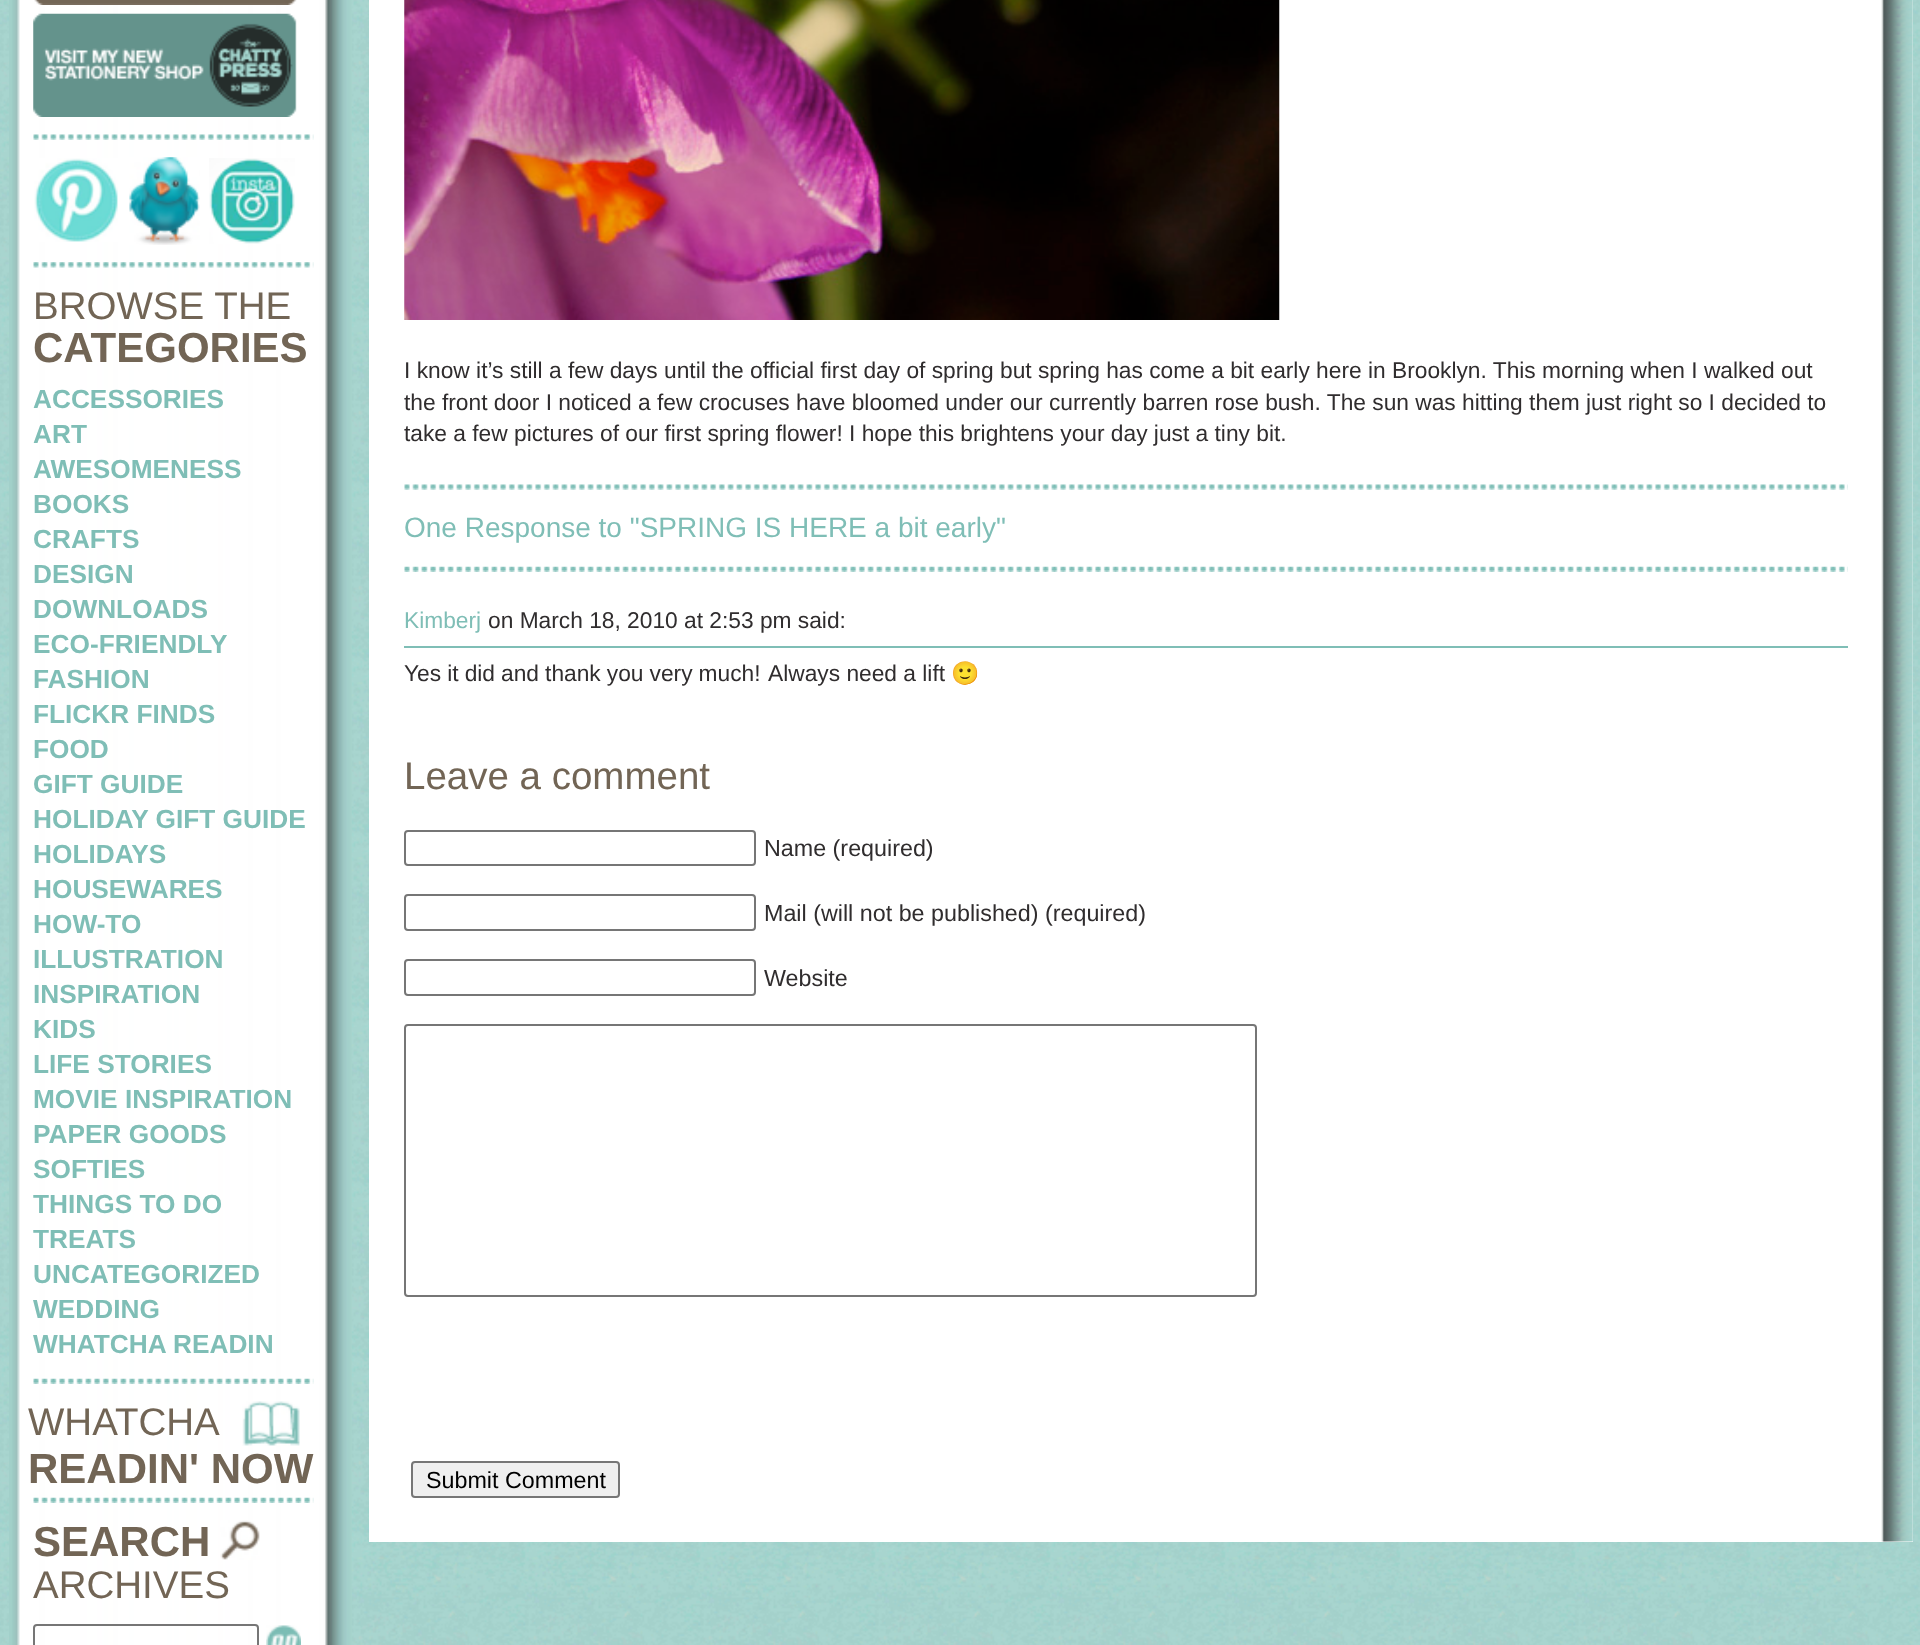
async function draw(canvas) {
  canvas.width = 1920
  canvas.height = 1645
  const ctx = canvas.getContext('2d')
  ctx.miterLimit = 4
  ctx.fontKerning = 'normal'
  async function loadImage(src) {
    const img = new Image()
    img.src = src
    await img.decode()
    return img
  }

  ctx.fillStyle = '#fff'
  ctx.fillRect(0, 0, 1920, 1645)
  ctx.drawImage(await loadImage('image0.png'), 0, 0, 1920, 1645)
  ctx.drawImage(await loadImage('image1.png'), 9, 0, 343, 1645)
  ctx.drawImage(await loadImage('image2.png'), 34, 0, 263, 5)
  ctx.drawImage(await loadImage('image3.png'), 33, 13, 264, 104)
  ctx.drawImage(await loadImage('image4.png'), 33, 134, 281, 6)
  ctx.drawImage(await loadImage('image5.png'), 34, 158, 84, 84)
  ctx.drawImage(await loadImage('image6.png'), 129, 157, 71, 88)
  ctx.drawImage(await loadImage('image7.png'), 209, 158, 86, 86)
  ctx.drawImage(await loadImage('image8.png'), 33, 262, 281, 6)
  ctx.font = '38.5px Liberation Sans'
  ctx.fillStyle = '#726555'
  ctx.fillText('BROWSE THE', 33, 319)
  ctx.font = 'bold 42px Liberation Sans'
  ctx.fillText('CATEGORIES', 33, 362)
  ctx.font = 'bold 26.25px Liberation Sans'
  ctx.fillStyle = '#7fbeb6'
  ctx.fillText('ACCESSORIES', 33, 408)
  ctx.fillText('ART', 33, 443)
  ctx.fillText('AWESOMENESS', 33, 478)
  ctx.fillText('BOOKS', 33, 513)
  ctx.fillText('CRAFTS', 33, 548)
  ctx.fillText('DESIGN', 33, 583)
  ctx.fillText('DOWNLOADS', 33, 618)
  ctx.fillText('ECO-FRIENDLY', 33, 653)
  ctx.fillText('FASHION', 33, 688)
  ctx.fillText('FLICKR FINDS', 33, 723)
  ctx.fillText('FOOD', 33, 758)
  ctx.fillText('GIFT GUIDE', 33, 793)
  ctx.fillText('HOLIDAY GIFT GUIDE', 33, 828)
  ctx.fillText('HOLIDAYS', 33, 863)
  ctx.fillText('HOUSEWARES', 33, 898)
  ctx.fillText('HOW-TO', 33, 933)
  ctx.fillText('ILLUSTRATION', 33, 968)
  ctx.fillText('INSPIRATION', 33, 1003)
  ctx.fillText('KIDS', 33, 1038)
  ctx.fillText('LIFE STORIES', 33, 1073)
  ctx.fillText('MOVIE INSPIRATION', 33, 1108)
  ctx.fillText('PAPER GOODS', 33, 1143)
  ctx.fillText('SOFTIES', 33, 1178)
  ctx.fillText('THINGS TO DO', 33, 1213)
  ctx.fillText('TREATS', 33, 1248)
  ctx.fillText('UNCATEGORIZED', 33, 1283)
  ctx.fillText('WEDDING', 33, 1318)
  ctx.fillText('WHATCHA READIN', 33, 1353)
  ctx.drawImage(await loadImage('image9.png'), 33, 1378, 281, 6)
  ctx.font = '38.5px Liberation Sans'
  ctx.fillStyle = '#726555'
  ctx.fillText('WHATCHA', 28, 1435)
  ctx.drawImage(await loadImage('image10.png'), 242, 1401, 58, 45)
  ctx.font = 'bold 42px Liberation Sans'
  ctx.fillText('READIN\' NOW', 28, 1483)
  ctx.drawImage(await loadImage('image11.png'), 33, 1497, 281, 6)
  ctx.fillText('SEARCH', 33, 1556)
  ctx.drawImage(await loadImage('image12.png'), 220, 1520, 40, 40)
  ctx.font = '38.5px Liberation Sans'
  ctx.fillText('ARCHIVES', 33, 1598)
  ctx.beginPath()
  ctx.roundRect(34, 1625, 224, 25, 3)
  ctx.strokeStyle = '#767676'
  ctx.lineWidth = 2
  ctx.stroke()
  ctx.drawImage(await loadImage('image13.png'), 266, 1625, 35, 20)
  ctx.fillStyle = '#fff'
  ctx.fillRect(369, 0, 1544, 1542)
  ctx.drawImage(await loadImage('image14.png'), 1881, 0, 32, 1542)
  ctx.drawImage(await loadImage('image15.png'), 404, 0, 876, 320)
  ctx.font = '22.75px Liberation Sans'
  ctx.fillStyle = '#302d2e'
  ctx.fillText('I know it’s still a few days until the official first day of spring but spring has come a bit early here in Brooklyn. This morning when I walked out', 404, 378)
  ctx.fillText('the front door I noticed a few crocuses have bloomed under our currently barren rose bush. The sun was hitting them just right so I decided to', 404, 410)
  ctx.fillText('take a few pictures of our first spring flower! I hope this brightens your day just a tiny bit.', 404, 441)
  ctx.drawImage(await loadImage('image16.png'), 404, 484, 1444, 6)
  ctx.font = '28px Liberation Sans'
  ctx.fillStyle = '#7fbeb6'
  ctx.fillText('One Response to "SPRING IS HERE a bit early"', 404, 537)
  ctx.drawImage(await loadImage('image17.png'), 404, 566, 1444, 6)
  ctx.font = '22.75px Liberation Sans'
  ctx.fillText('Kimberj', 404, 628)
  ctx.fillStyle = '#302d2e'
  ctx.fillText('on March 18, 2010 at 2:53 pm said:', 488, 628)
  ctx.fillStyle = '#7fbeb6'
  ctx.fillRect(404, 646, 1444, 2)
  ctx.wordSpacing = '-0.25px'
  ctx.fillStyle = '#302d2e'
  ctx.fillText('Yes it did and thank you very much!', 404, 681)
  ctx.wordSpacing = '0px'
  ctx.fillText('Always need a lift', 768, 681)
  ctx.font = '22.75px Noto Color Emoji'
  ctx.fillText('🙂', 951, 681)
  ctx.font = '38.5px Liberation Sans'
  ctx.fillStyle = '#726555'
  ctx.fillText('Leave a comment', 404, 789)
  ctx.beginPath()
  ctx.roundRect(405, 831, 350, 34, 3)
  ctx.stroke()
  ctx.font = '23.3px Liberation Sans'
  ctx.fillStyle = '#302d2e'
  ctx.fillText('Name (required)', 764, 856)
  ctx.beginPath()
  ctx.roundRect(405, 895, 350, 35, 3)
  ctx.stroke()
  ctx.fillText('Mail (will not be published) (required)', 764, 921)
  ctx.beginPath()
  ctx.roundRect(405, 960, 350, 35, 3)
  ctx.stroke()
  ctx.fillText('Website', 764, 986)
  ctx.beginPath()
  ctx.roundRect(405, 1025, 851, 271, 3)
  ctx.stroke()
  ctx.fillStyle = '#efefef'
  ctx.beginPath()
  ctx.roundRect(412, 1462, 207, 35, 3)
  ctx.fill()
  ctx.stroke()
  ctx.fillStyle = '#000'
  ctx.fillText('Submit Comment', 426, 1488)
}

draw(document.querySelector('canvas'))
